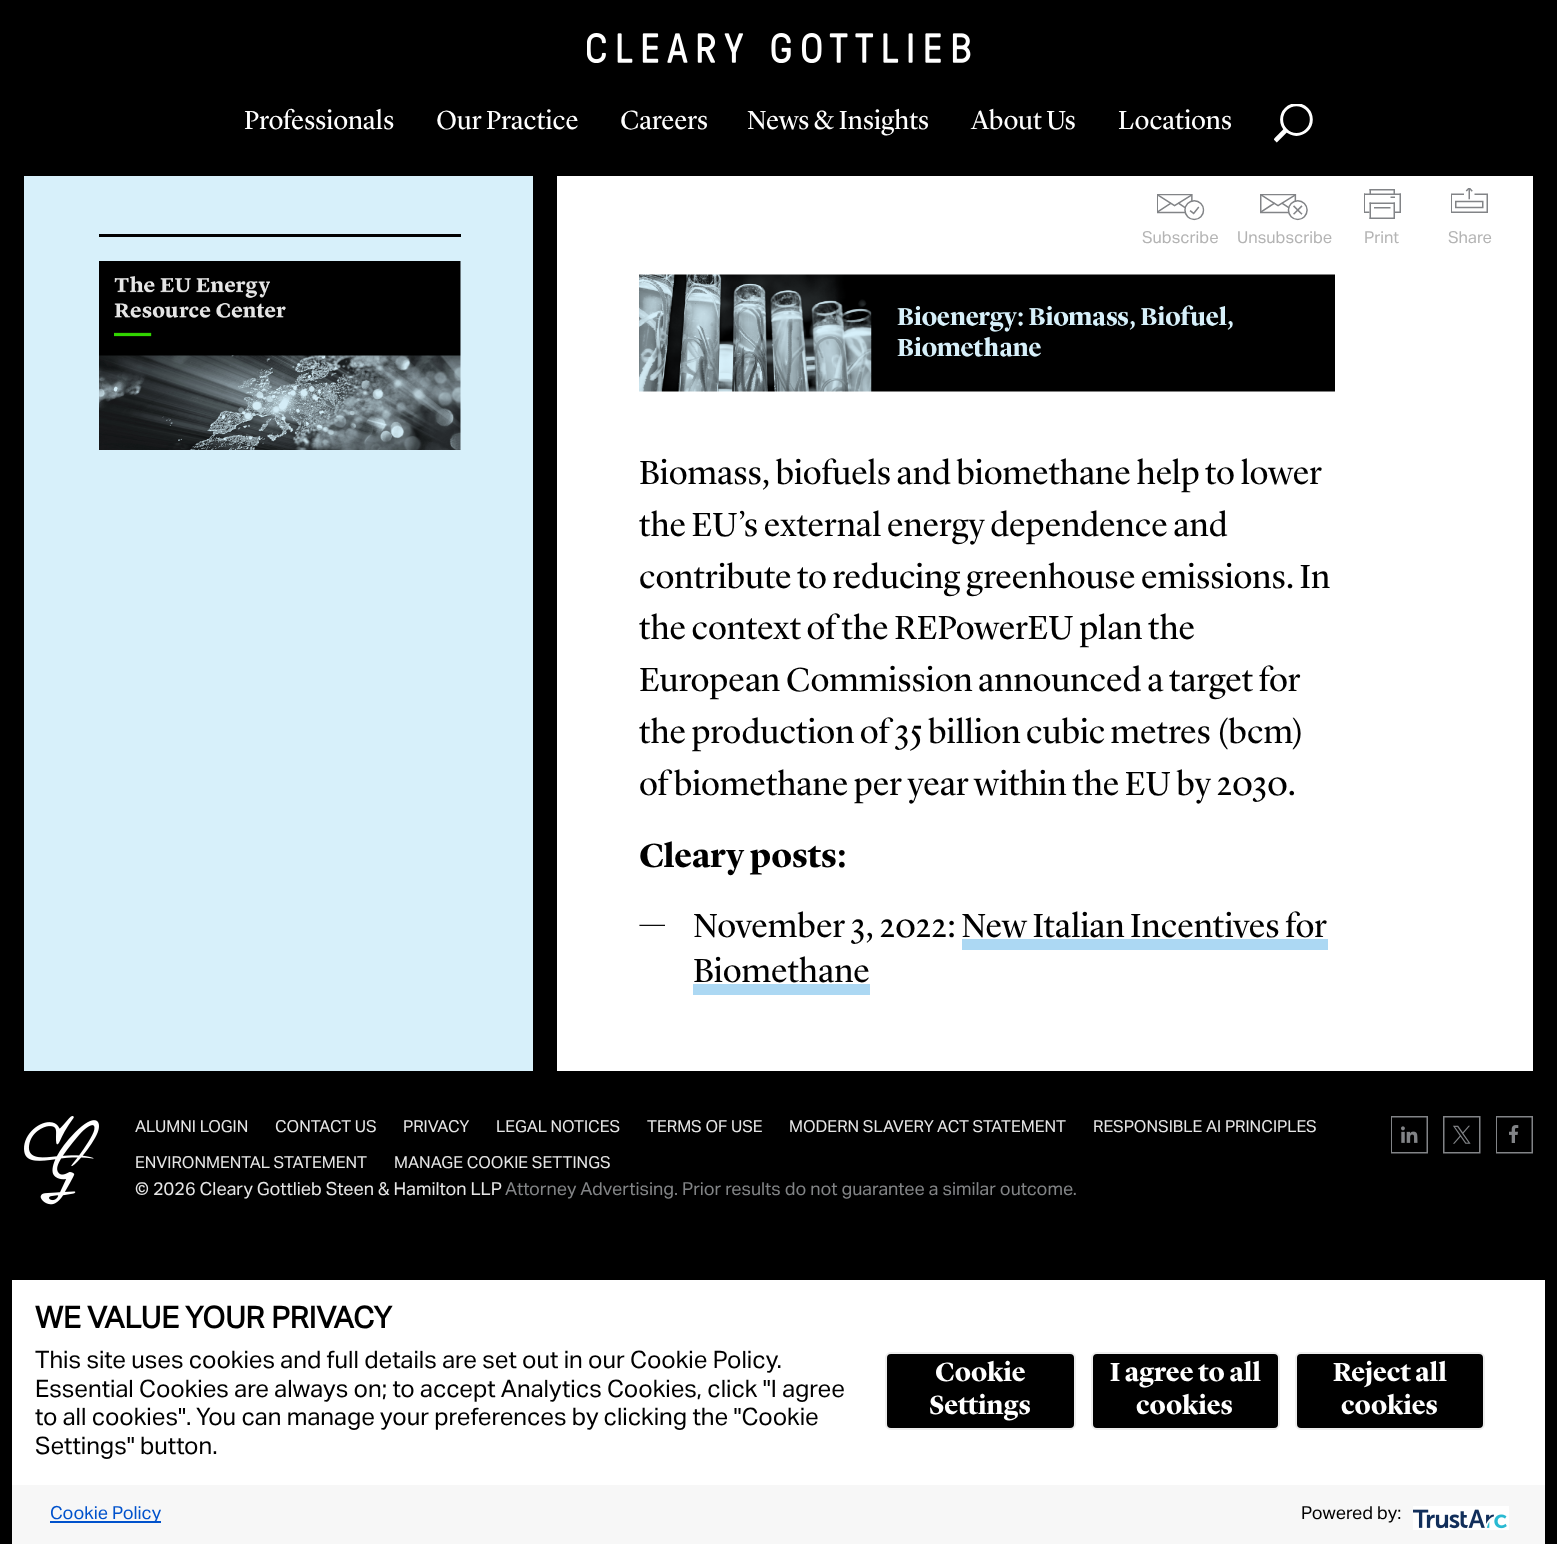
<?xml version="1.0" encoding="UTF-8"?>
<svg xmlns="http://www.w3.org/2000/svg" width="1557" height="1544">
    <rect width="100%" height="100%" fill="#000000"/>
    <image x="587" y="33" width="384" height="30" href="img_01.png"/>
    <text x="244" y="129" font-family="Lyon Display" font-size="27" fill="#FFFFFF">Professionals</text>
    <text x="436" y="129" font-family="Lyon Display" font-size="27" fill="#FFFFFF">Our Practice</text>
    <text x="620" y="129" font-family="Lyon Display" font-size="27" fill="#FFFFFF">Careers</text>
    <text x="747" y="129" font-family="Lyon Display" font-size="27" fill="#FFFFFF">News &amp; Insights</text>
    <text x="971" y="129" font-family="Lyon Display" font-size="27" fill="#FFFFFF">About Us</text>
    <text x="1118" y="129" font-family="Lyon Display" font-size="27" fill="#FFFFFF">Locations</text>
    <image x="1274" y="104" width="39" height="39" href="img_02.png"/>
    <rect x="24" y="176" width="509" height="895" fill="#D7F0FA"/>
    <rect x="557" y="176" width="976" height="895" fill="#FFFFFF"/>
    <rect x="99" y="234" width="362" height="3" fill="#000000"/>
    <image x="99" y="261" width="362" height="189" href="img_03.png"/>
    <image x="1157" y="194" width="48" height="27" href="img_04.png"/>
    <text x="1142" y="243" font-family="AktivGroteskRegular" font-size="16.5" fill="#B4B4B4">Subscribe</text>
    <image x="1260" y="194" width="48" height="27" href="img_05.png"/>
    <text x="1237" y="243" font-family="AktivGroteskRegular" font-size="16.5" fill="#B4B4B4">Unsubscribe</text>
    <image x="1364" y="189" width="37" height="30" href="img_06.png"/>
    <text x="1364" y="243" font-family="AktivGroteskRegular" font-size="16.5" fill="#B4B4B4">Print</text>
    <image x="1451" y="188" width="37" height="25" href="img_07.png"/>
    <text x="1448" y="243" font-family="AktivGroteskRegular" font-size="16.5" fill="#B4B4B4">Share</text>
    <image x="639" y="274" width="696" height="118" href="img_08.png"/>
    <text font-family="Lyon Display" font-size="34.5" fill="#000000">
        <tspan x="639" y="484">Biomass, biofuels and biomethane help to lower</tspan>
        <tspan x="639" y="536">the EU’s external energy dependence and</tspan>
        <tspan x="639" y="588">contribute to reducing greenhouse emissions. In</tspan>
        <tspan x="639" y="639">the context of the REPowerEU plan the</tspan>
        <tspan x="639" y="691">European Commission announced a target for</tspan>
        <tspan x="639" y="743">the production of 35 billion cubic metres (bcm)</tspan>
        <tspan x="639" y="795">of biomethane per year within the EU by 2030.</tspan>
    </text>
    <text x="639" y="867" font-family="Lyon Display" font-size="34.5" font-weight="700" fill="#000000">Cleary posts:</text>
    <text x="638" y="934" font-family="Lyon Display" font-size="32" fill="#000000">—</text>
    <text font-family="Lyon Display" font-size="34.5" fill="#000000">
        <tspan x="693" y="937">November 3, 2022: New Italian Incentives for</tspan>
        <tspan x="693" y="982">Biomethane</tspan>
    </text>
    <rect x="962" y="939" width="366" height="11" fill="#ACD8F3"/>
    <rect x="693" y="984" width="177" height="11" fill="#ACD8F3"/>
    <image x="24" y="1116" width="75" height="89" href="img_09.png"/>
    <text x="135" y="1132" font-family="AktivGroteskRegular" font-size="16.5" fill="#E6E6E6">ALUMNI LOGIN</text>
    <text x="275" y="1132" font-family="AktivGroteskRegular" font-size="16.5" fill="#E6E6E6">CONTACT US</text>
    <text x="403" y="1132" font-family="AktivGroteskRegular" font-size="16.5" fill="#E6E6E6">PRIVACY</text>
    <text x="496" y="1132" font-family="AktivGroteskRegular" font-size="16.5" fill="#E6E6E6">LEGAL NOTICES</text>
    <text x="647" y="1132" font-family="AktivGroteskRegular" font-size="16.5" fill="#E6E6E6">TERMS OF USE</text>
    <text x="789" y="1132" font-family="AktivGroteskRegular" font-size="16.5" fill="#E6E6E6">MODERN SLAVERY ACT STATEMENT</text>
    <text x="1093" y="1132" font-family="AktivGroteskRegular" font-size="16.5" fill="#E6E6E6">RESPONSIBLE AI PRINCIPLES</text>
    <text x="135" y="1168" font-family="AktivGroteskRegular" font-size="16.5" fill="#E6E6E6">ENVIRONMENTAL STATEMENT</text>
    <text x="394" y="1168" font-family="AktivGroteskRegular" font-size="16.5" fill="#E6E6E6">MANAGE COOKIE SETTINGS</text>
    <image x="1391" y="1116" width="37" height="38" href="img_10.png"/>
    <image x="1443" y="1116" width="38" height="38" href="img_11.png"/>
    <image x="1496" y="1116" width="37" height="38" href="img_12.png"/>
    <text x="135" y="1195" font-family="AktivGroteskRegular" font-size="18" fill="#E6E6E6">© 2026 Cleary Gottlieb Steen &amp; Hamilton LLP</text>
    <text x="505" y="1195" font-family="AktivGroteskRegular" font-size="18" fill="#828486">Attorney Advertising. Prior results do not guarantee a similar outcome.</text>
    <rect x="12" y="1280" width="1533" height="205" fill="#FFFFFF"/>
    <text x="35" y="1328" font-family="AktivGroteskRegular" font-size="30" font-weight="700" fill="#000000">WE VALUE YOUR PRIVACY</text>
    <text font-family="AktivGroteskRegular" font-size="24" fill="#000000">
        <tspan x="35" y="1368">This site uses cookies and full details are set out in our Cookie Policy.</tspan>
        <tspan x="35" y="1397">Essential Cookies are always on; to accept Analytics Cookies, click "I agree</tspan>
        <tspan x="35" y="1425">to all cookies". You can manage your preferences by clicking the "Cookie</tspan>
        <tspan x="35" y="1454">Settings" button.</tspan>
    </text>
    <rect x="886" y="1353" width="189" height="76" rx="5" fill="#000000" stroke="#EEEEEE" stroke-width="2"/>
    <text x="935" y="1381" font-family="Lyon Display" font-size="27" font-weight="700" fill="#FFFFFF">Cookie</text>
    <text x="929" y="1414" font-family="Lyon Display" font-size="27" font-weight="700" fill="#FFFFFF">Settings</text>
    <rect x="1092" y="1353" width="187" height="76" rx="5" fill="#000000" stroke="#EEEEEE" stroke-width="2"/>
    <text x="1110" y="1381" font-family="Lyon Display" font-size="27" font-weight="700" fill="#FFFFFF">I agree to all</text>
    <text x="1136" y="1414" font-family="Lyon Display" font-size="27" font-weight="700" fill="#FFFFFF">cookies</text>
    <rect x="1296" y="1353" width="188" height="76" rx="5" fill="#000000" stroke="#EEEEEE" stroke-width="2"/>
    <text x="1333" y="1381" font-family="Lyon Display" font-size="27" font-weight="700" fill="#FFFFFF">Reject all</text>
    <text x="1341" y="1414" font-family="Lyon Display" font-size="27" font-weight="700" fill="#FFFFFF">cookies</text>
    <rect x="12" y="1485" width="1533" height="59" fill="#F7F7F7"/>
    <rect x="50" y="1521" width="111" height="2" fill="#0052CC"/>
    <text x="50" y="1519" font-family="AktivGroteskRegular" font-size="18" fill="#0052CC">Cookie Policy</text>
    <text x="1301" y="1519" font-family="AktivGroteskRegular" font-size="18" fill="#000000">Powered by:</text>
    <image x="1413" y="1506" width="96" height="24" href="img_13.png"/>
</svg>
